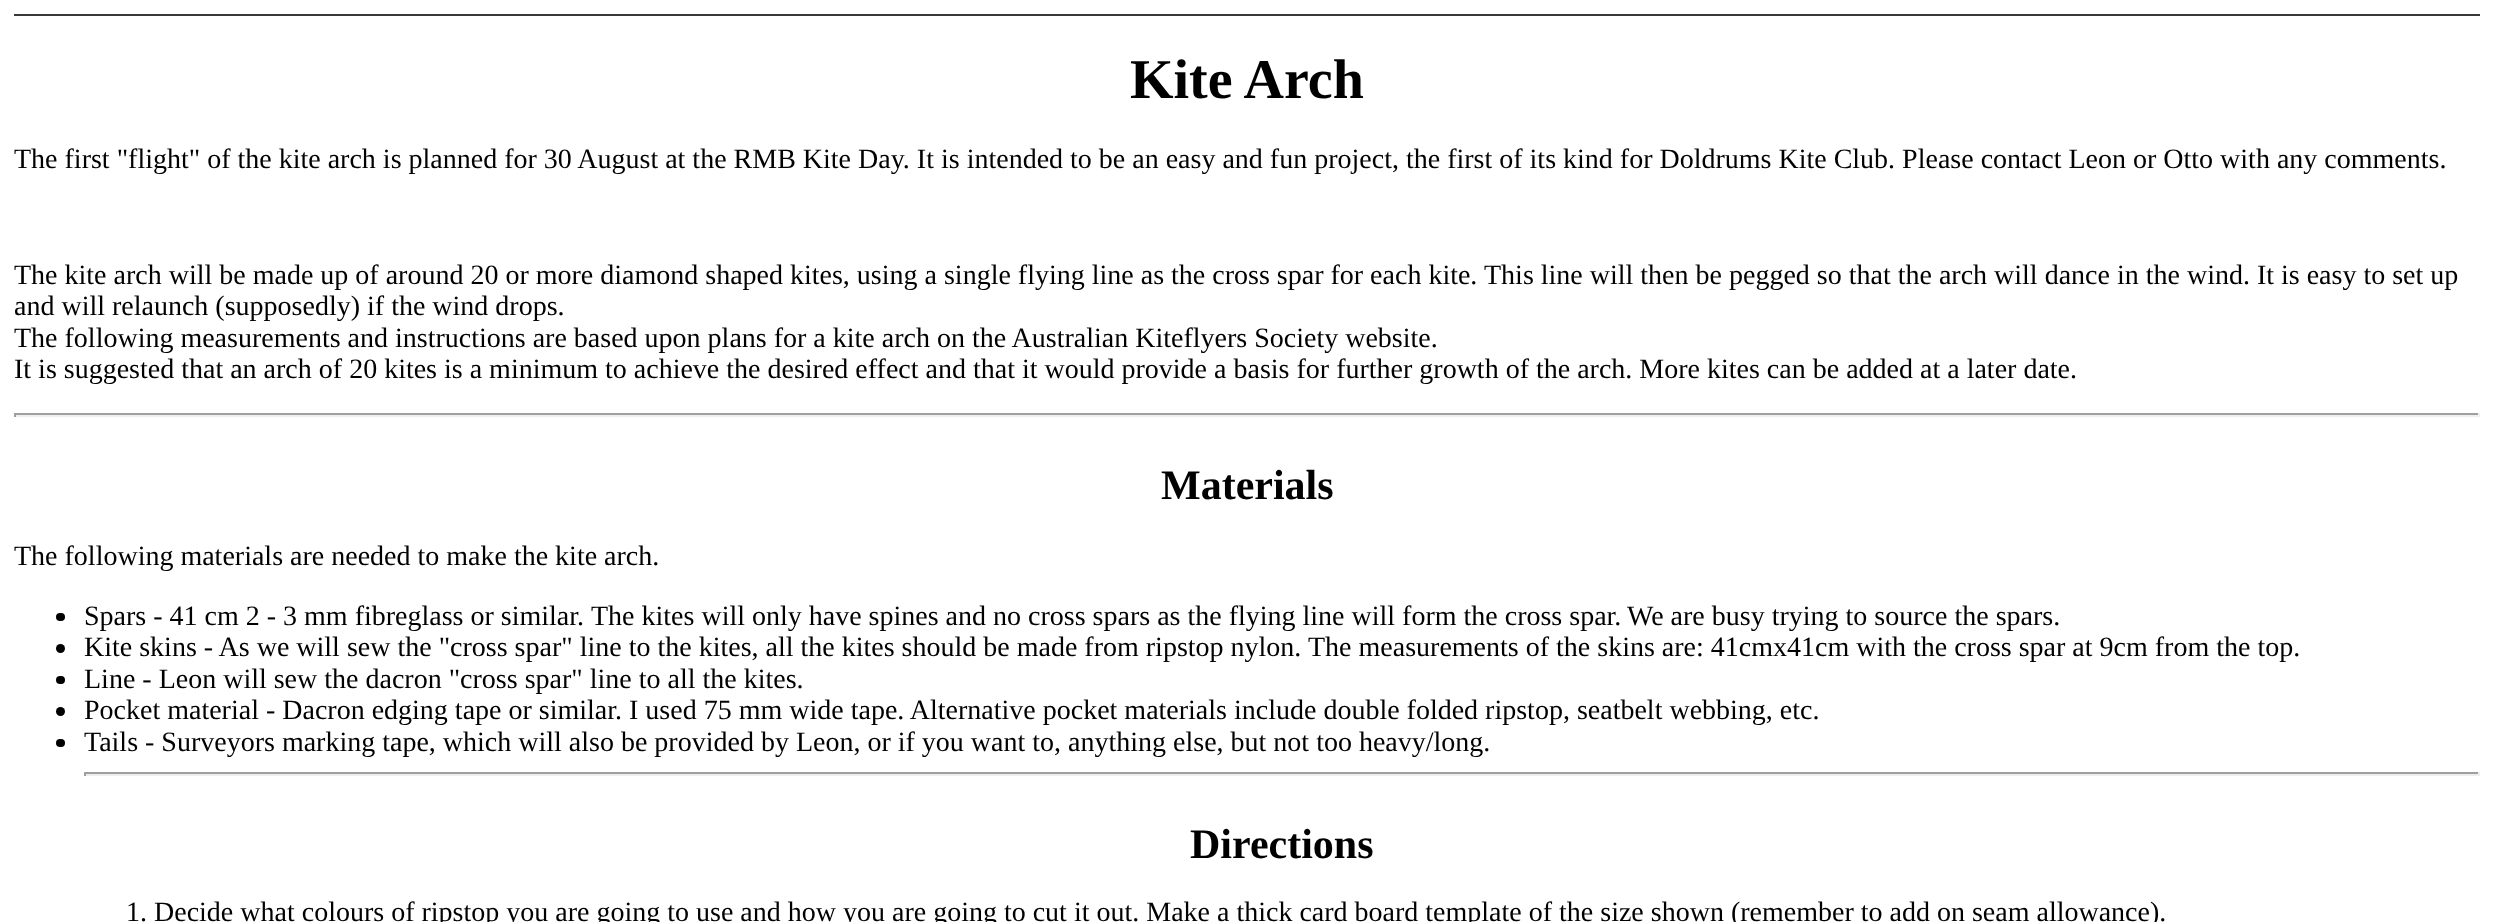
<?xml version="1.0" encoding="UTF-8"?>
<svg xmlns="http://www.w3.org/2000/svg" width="2493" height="922">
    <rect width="100%" height="100%" fill="#FFFFFF"/>
    <rect x="14" y="14" width="2466" height="2" fill="#393939"/>
    <text x="1130" y="98" font-family="Liberation Serif" font-size="56" font-weight="700" fill="#000000">Kite Arch</text>
    <text x="14" y="168" font-family="Liberation Serif" font-size="28" fill="#000000">The first "flight" of the kite arch is planned for 30 August at the RMB Kite Day. It is intended to be an easy and fun project, the first of its kind for Doldrums Kite Club. Please contact Leon or Otto with any comments.</text>
    <text x="14" y="284" font-family="Liberation Serif" font-size="28" fill="#000000">The kite arch will be made up of around 20 or more diamond shaped kites, using a single flying line as the cross spar for each kite.</text>
    <text x="1484" y="284" font-family="Liberation Serif" font-size="28" fill="#000000">This line will then be pegged so that the arch will dance in the wind. It is easy to set up</text>
    <text font-family="Liberation Serif" font-size="28" fill="#000000">
        <tspan x="14" y="315">and will relaunch (supposedly) if the wind drops.</tspan>
        <tspan x="14" y="347">The following measurements and instructions are based upon plans for a kite arch on the Australian Kiteflyers Society website.</tspan>
        <tspan x="14" y="378">It is suggested that an arch of 20 kites is a minimum to achieve the desired effect and that it would provide a basis for further growth of the arch. More kites can be added at a later date.</tspan>
    </text>
    <rect x="14" y="413" width="2466" height="2" fill="#9F9F9F"/>
    <rect x="2478" y="413" width="2" height="4" fill="#EEEEEE"/>
    <rect x="14" y="415" width="2466" height="2" fill="#EEEEEE"/>
    <rect x="14" y="413" width="2" height="4" fill="#9F9F9F"/>
    <text x="1161" y="499" font-family="Liberation Serif" font-size="42" font-weight="700" fill="#000000">Materials</text>
    <text x="14" y="565" font-family="Liberation Serif" font-size="28" fill="#000000">The following materials are needed to make the kite arch.</text>
    <rect x="56" y="613" width="9" height="8" rx="4" fill="#000000"/>
    <text x="84" y="625" font-family="Liberation Serif" font-size="28" fill="#000000">Spars - 41 cm 2 - 3 mm fibreglass or similar.</text>
    <text x="591" y="625" font-family="Liberation Serif" font-size="28" fill="#000000">The kites will only have spines and no cross spars as the flying line will form the cross spar.</text>
    <text x="1627" y="625" font-family="Liberation Serif" font-size="28" fill="#000000">We are busy trying to source the spars.</text>
    <circle cx="60.5" cy="648.5" r="4.5" fill="#000000"/>
    <text x="84" y="656" font-family="Liberation Serif" font-size="28" fill="#000000">Kite skins - As we will sew the "cross spar" line to the kites, all the kites should be made from ripstop nylon.</text>
    <text x="1308" y="656" font-family="Liberation Serif" font-size="28" fill="#000000">The measurements of the skins are: 41cmx41cm with the cross spar at 9cm from the top.</text>
    <rect x="56" y="676" width="9" height="8" rx="4" fill="#000000"/>
    <text x="84" y="688" font-family="Liberation Serif" font-size="28" fill="#000000">Line - Leon will sew the dacron "cross spar" line to all the kites.</text>
    <circle cx="60.5" cy="711.5" r="4.5" fill="#000000"/>
    <text x="84" y="719" font-family="Liberation Serif" font-size="28" fill="#000000">Pocket material - Dacron edging tape or similar. I used 75 mm wide tape. Alternative pocket materials include double folded ripstop, seatbelt webbing, etc.</text>
    <rect x="56" y="739" width="9" height="8" rx="4" fill="#000000"/>
    <text x="84" y="751" font-family="Liberation Serif" font-size="28" fill="#000000">Tails - Surveyors marking tape, which will also be provided by Leon, or if you want to, anything else, but not too heavy/long.</text>
    <rect x="84" y="772" width="2396" height="2" fill="#9F9F9F"/>
    <rect x="2478" y="772" width="2" height="4" fill="#EEEEEE"/>
    <rect x="84" y="774" width="2396" height="2" fill="#EEEEEE"/>
    <rect x="84" y="772" width="2" height="4" fill="#9F9F9F"/>
    <text x="1190" y="858" font-family="Liberation Serif" font-size="42" font-weight="700" fill="#000000">Directions</text>
    <text x="126" y="921" font-family="Liberation Serif" font-size="28" fill="#000000">1. Decide what colours of ripstop you are going to use and how you are going to cut it out. Make a thick card board template of the size shown (remember to add on seam allowance).</text>
</svg>
